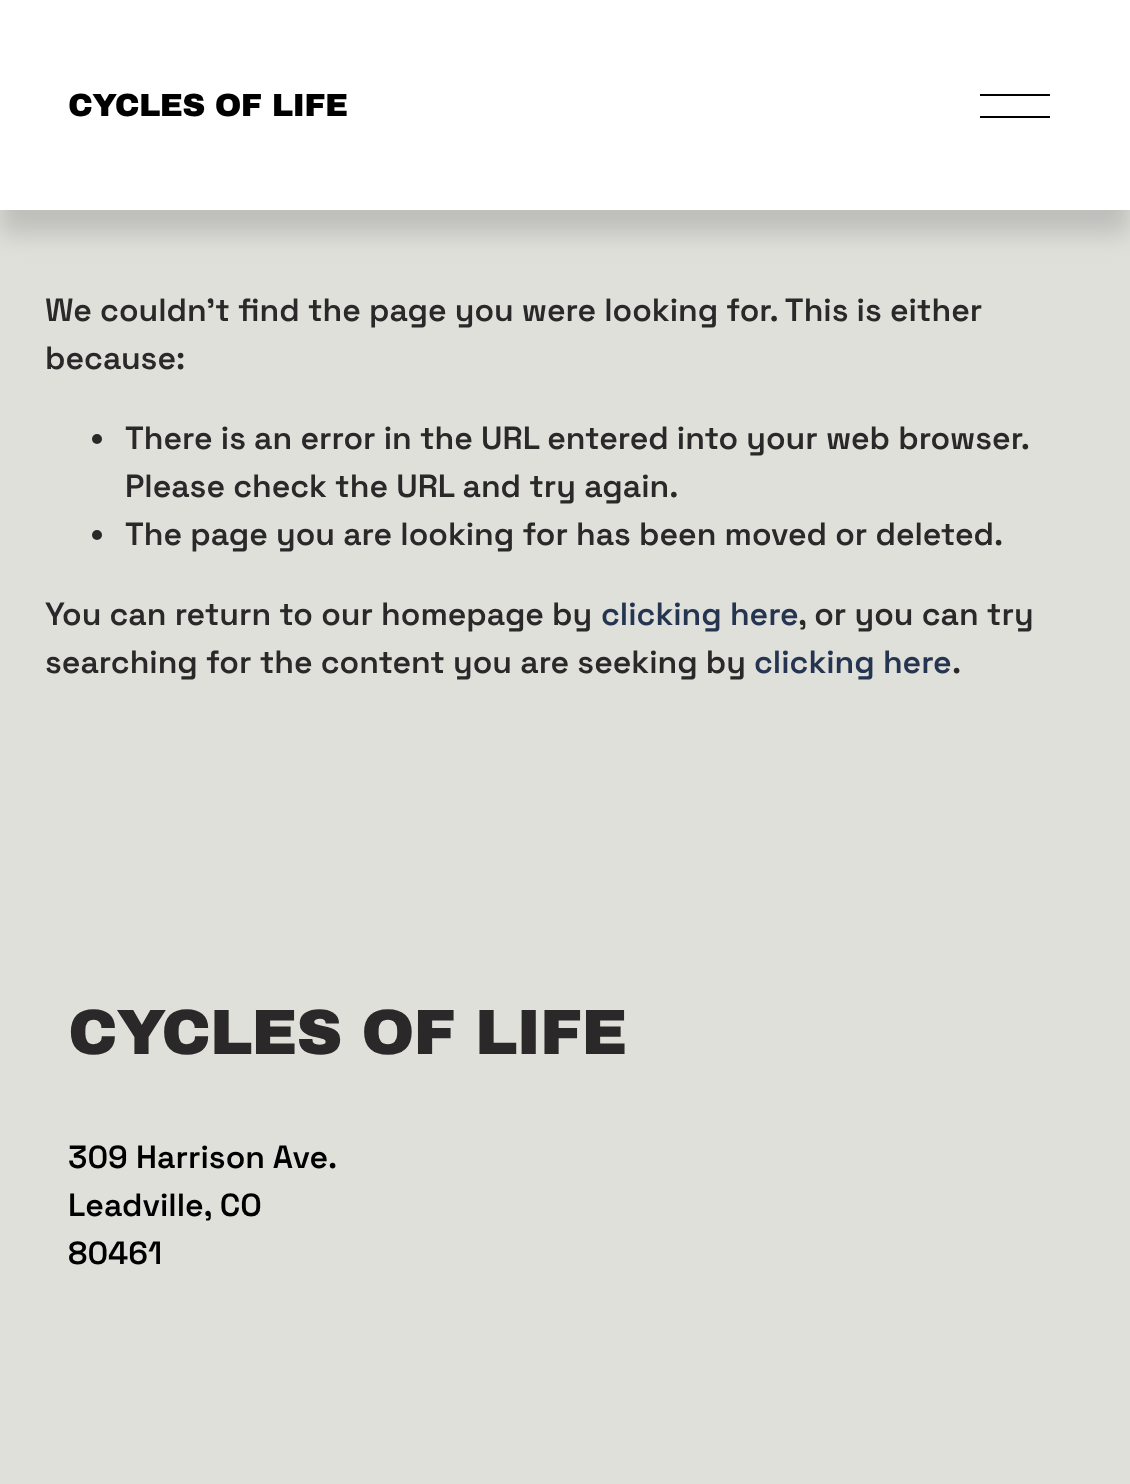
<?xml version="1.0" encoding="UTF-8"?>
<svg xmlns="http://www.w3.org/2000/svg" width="1130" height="1484">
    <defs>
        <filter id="blur1" x="-50%" y="-200%" width="200%" height="500%"><feGaussianBlur stdDeviation="12"/></filter>
    </defs>
    <rect width="100%" height="100%" fill="#E0E0DB"/>
    <rect x="0" y="24" width="1130" height="210" fill="#BEBEBA" filter="url(#blur1)"/>
    <rect x="0" y="0" width="1130" height="210" fill="#FFFFFF"/>
    <text x="68" y="116" font-family="Archivo Black" font-size="32" font-weight="900" letter-spacing="-0.6" fill="#000000">CYCLES OF LIFE</text>
    <rect x="980" y="94" width="70" height="2" fill="#000000"/>
    <rect x="980" y="116" width="70" height="2" fill="#000000"/>
    <text font-family="Space Grotesk" font-size="32" font-weight="600" fill="#2A2829">
        <tspan x="45" y="321">We couldn't find the page you were looking for. This is either</tspan>
        <tspan x="45" y="369">because:</tspan>
    </text>
    <circle cx="97" cy="439" r="5" fill="#2A2829"/>
    <text font-family="Space Grotesk" font-size="32" font-weight="600" fill="#2A2829">
        <tspan x="125" y="449">There is an error in the URL entered into your web browser.</tspan>
        <tspan x="125" y="497">Please check the URL and try again.</tspan>
    </text>
    <circle cx="97" cy="535" r="5" fill="#2A2829"/>
    <text x="125" y="545" font-family="Space Grotesk" font-size="32" font-weight="600" fill="#2A2829">The page you are looking for has been moved or deleted.</text>
    <text x="45" y="625" font-family="Space Grotesk" font-size="32" font-weight="600" fill="#2A2829">You can return to our homepage by</text>
    <text x="601" y="625" font-family="Space Grotesk" font-size="32" font-weight="600" fill="#253551">clicking here</text>
    <text x="798" y="625" font-family="Space Grotesk" font-size="32" font-weight="600" fill="#2A2829">, or you can try</text>
    <text x="45" y="673" font-family="Space Grotesk" font-size="32" font-weight="600" fill="#2A2829">searching for the content you are seeking by</text>
    <text x="754" y="673" font-family="Space Grotesk" font-size="32" font-weight="600" fill="#253551">clicking here</text>
    <text x="952" y="673" font-family="Space Grotesk" font-size="32" font-weight="600" fill="#2A2829">.</text>
    <text x="68" y="1054" font-family="Archivo Black" font-size="64" font-weight="900" letter-spacing="-1.25" fill="#2A2829">CYCLES OF LIFE</text>
    <text font-family="Space Grotesk" font-size="32" font-weight="600" fill="#000000">
        <tspan x="68" y="1168">309 Harrison Ave.</tspan>
        <tspan x="68" y="1216">Leadville, CO</tspan>
        <tspan x="68" y="1264">80461</tspan>
    </text>
</svg>
